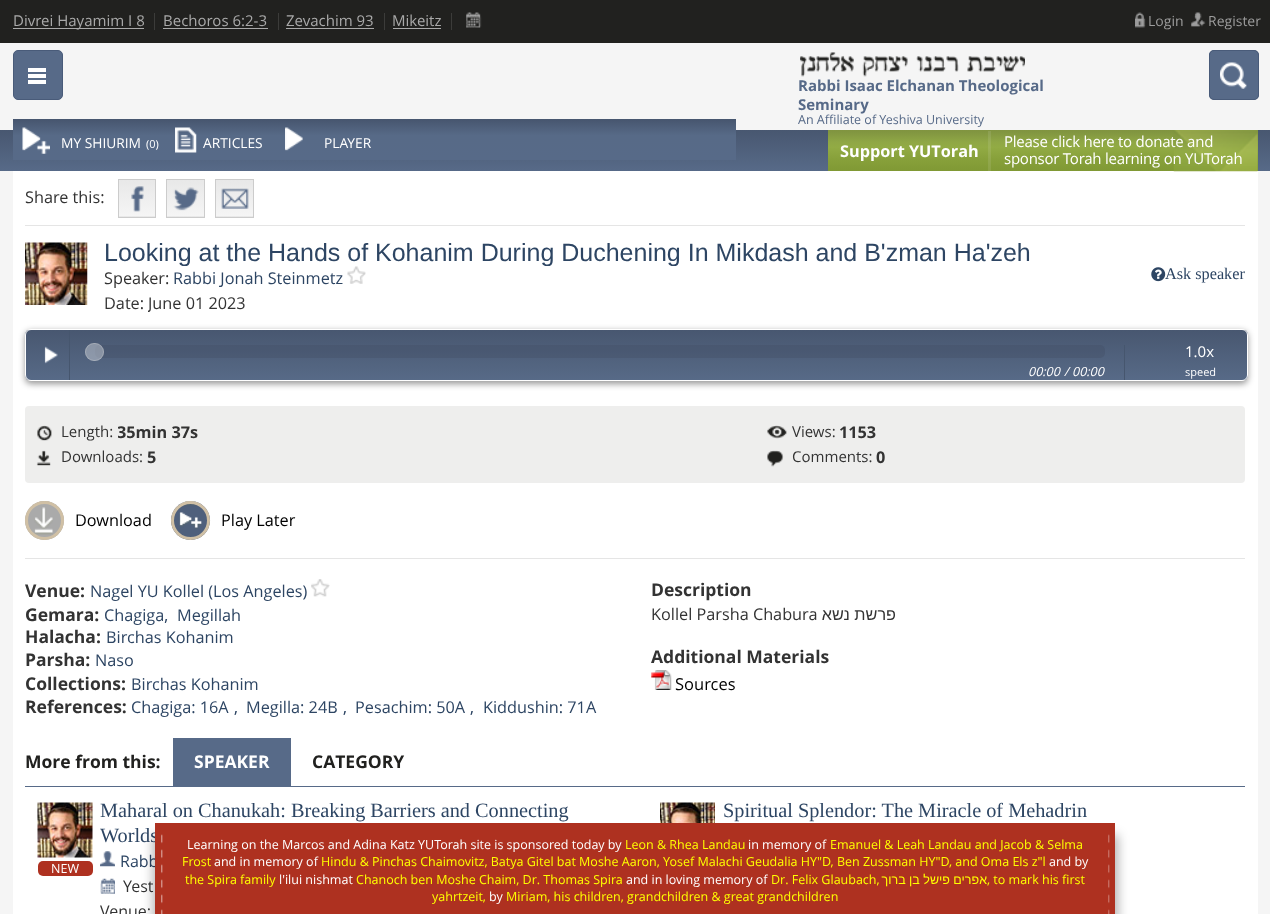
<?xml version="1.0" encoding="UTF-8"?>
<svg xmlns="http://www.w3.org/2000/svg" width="1270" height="914">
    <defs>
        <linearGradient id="g1" gradientUnits="userSpaceOnUse" x1="635" y1="130" x2="635" y2="171"><stop offset="0" stop-color="#485770"/><stop offset="1" stop-color="#576A88"/></linearGradient>
        <linearGradient id="g2" gradientUnits="userSpaceOnUse" x1="1043" y1="130" x2="1043" y2="171"><stop offset="0" stop-color="#819640"/><stop offset="0.02" stop-color="#809440"/><stop offset="0.09" stop-color="#839841"/><stop offset="0.29" stop-color="#8FA745"/><stop offset="0.42" stop-color="#92AB44"/><stop offset="0.69" stop-color="#88A13B"/><stop offset="1" stop-color="#809934"/></linearGradient>
        <linearGradient id="g3" gradientUnits="userSpaceOnUse" x1="1043" y1="130" x2="1043" y2="171"><stop offset="0" stop-color="#8DA052"/><stop offset="0.02" stop-color="#8C9E52"/><stop offset="0.09" stop-color="#8EA153"/><stop offset="0.29" stop-color="#99AF57"/><stop offset="0.42" stop-color="#9CB256"/><stop offset="0.69" stop-color="#93A94E"/><stop offset="1" stop-color="#8CA247"/></linearGradient>
        <linearGradient id="g4" gradientUnits="userSpaceOnUse" x1="137" y1="180" x2="137" y2="216"><stop offset="0" stop-color="#E8E8E8"/><stop offset="1" stop-color="#F5F5F5"/></linearGradient>
        <linearGradient id="g5" gradientUnits="userSpaceOnUse" x1="137" y1="216" x2="137" y2="253"><stop offset="0" stop-color="#E8E8E8"/><stop offset="1" stop-color="#F5F5F5"/></linearGradient>
        <linearGradient id="g6" gradientUnits="userSpaceOnUse" x1="186" y1="180" x2="186" y2="216"><stop offset="0" stop-color="#E8E8E8"/><stop offset="1" stop-color="#F5F5F5"/></linearGradient>
        <linearGradient id="g7" gradientUnits="userSpaceOnUse" x1="186" y1="216" x2="186" y2="253"><stop offset="0" stop-color="#E8E8E8"/><stop offset="1" stop-color="#F5F5F5"/></linearGradient>
        <linearGradient id="g8" gradientUnits="userSpaceOnUse" x1="234" y1="180" x2="234" y2="216"><stop offset="0" stop-color="#E8E8E8"/><stop offset="1" stop-color="#F5F5F5"/></linearGradient>
        <linearGradient id="g9" gradientUnits="userSpaceOnUse" x1="234" y1="216" x2="234" y2="253"><stop offset="0" stop-color="#E8E8E8"/><stop offset="1" stop-color="#F5F5F5"/></linearGradient>
        <clipPath id="clip1"><rect x="104" y="239" width="1141" height="27"/></clipPath>
        <clipPath id="clip2"><rect x="148" y="291" width="1097" height="25"/></clipPath>
        <filter id="blur1" x="-50%" y="-200%" width="200%" height="500%"><feGaussianBlur stdDeviation="3"/></filter>
        <clipPath id="clip3"><rect x="25" y="329" width="1223" height="52" rx="6"/></clipPath>
        <linearGradient id="g10" gradientUnits="userSpaceOnUse" x1="636" y1="330" x2="636" y2="380"><stop offset="0" stop-color="#485770"/><stop offset="1" stop-color="#576A87"/></linearGradient>
        <clipPath id="clip4"><rect x="118" y="420" width="637" height="25"/></clipPath>
        <linearGradient id="g11" gradientUnits="userSpaceOnUse" x1="374" y1="119" x2="374" y2="160"><stop offset="0" stop-color="#485770"/><stop offset="0.02" stop-color="#47566F"/><stop offset="0.4" stop-color="#576A87"/><stop offset="1" stop-color="#576A88"/></linearGradient>
        <filter id="blur2" x="-50%" y="-200%" width="200%" height="500%"><feGaussianBlur stdDeviation="5.5"/></filter>
    </defs>
    <rect width="100%" height="100%" fill="#F5F5F5"/>
    <rect x="0" y="0" width="1270" height="43" fill="#21211F"/>
    <rect x="13" y="28" width="131" height="1" fill="#A9A9A9"/>
    <text x="13" y="26" font-family="Open Sans" font-size="15" fill="#A9A9A9">Divrei Hayamim I 8</text>
    <rect x="154" y="13" width="1" height="17" fill="#3C3C3A"/>
    <text x="163" y="26" font-family="Open Sans" font-size="15" fill="#A9A9A9">Bechoros 6:2-3</text>
    <rect x="163" y="28" width="105" height="1" fill="#A9A9A9"/>
    <rect x="278" y="13" width="1" height="17" fill="#3C3C3A"/>
    <text x="286" y="26" font-family="Open Sans" font-size="15" fill="#A9A9A9">Zevachim 93</text>
    <rect x="286" y="28" width="88" height="1" fill="#A9A9A9"/>
    <rect x="451" y="13" width="1" height="17" fill="#3C3C3A"/>
    <rect x="384" y="13" width="1" height="17" fill="#3C3C3A"/>
    <text x="392" y="26" font-family="Open Sans" font-size="15" fill="#A9A9A9">Mikeitz</text>
    <rect x="393" y="28" width="48" height="1" fill="#A9A9A9"/>
    <image x="466" y="12" width="16" height="16" href="img_01.png"/>
    <image x="1135" y="12" width="11" height="16" href="img_02.png"/>
    <text x="1148" y="26" font-family="Open Sans" font-size="14" fill="#9D9D9D">Login</text>
    <image x="1191" y="12" width="15" height="15" href="img_03.png"/>
    <text x="1208" y="26" font-family="Open Sans" font-size="14" fill="#9D9D9D">Register</text>
    <image x="800" y="52" width="225" height="25" href="img_04.png"/>
    <text font-family="Open Sans" font-size="15" font-weight="700" fill="#576A88">
        <tspan x="798" y="91">Rabbi Isaac Elchanan Theological</tspan>
        <tspan x="798" y="110">Seminary</tspan>
    </text>
    <text x="798" y="124" font-family="Open Sans" font-size="12.5" fill="#576A88">An Affiliate of Yeshiva University</text>
    <rect x="1209" y="50" width="50" height="50" rx="5" fill="#576A88"/>
    <image x="1220" y="62" width="27" height="27" href="img_05.png"/>
    <rect x="1209.5" y="50.5" width="49" height="49" rx="4.5" fill="none" stroke="#495B79"/>
    <rect x="0" y="130" width="1270" height="41" fill="url(#g1)"/>
    <rect x="13.5" y="50.5" width="49" height="49" rx="4.5" fill="#576A88" stroke="#495B79"/>
    <rect x="28" y="68" width="18" height="4" fill="#FFFFFF"/>
    <rect x="28" y="80" width="18" height="4" fill="#FFFFFF"/>
    <rect x="28" y="74" width="18" height="4" fill="#FFFFFF"/>
    <rect x="828" y="130" width="430" height="41" fill="url(#g2)"/>
    <rect x="988" y="131" width="3" height="40" fill="url(#g3)"/>
    <rect x="13" y="171" width="1245" height="743" fill="#FFFFFF"/>
    <image x="1173" y="130" width="85" height="42" href="img_06.png"/>
    <text x="840" y="157" font-family="Open Sans" font-size="16.25" font-weight="700" fill="#FFFFFF">Support YUTorah</text>
    <text font-family="Open Sans" font-size="15" letter-spacing="-0.25" fill="#FFFFFF">
        <tspan x="1004" y="147">Please click here to donate and</tspan>
        <tspan x="1004" y="164">sponsor Torah learning on YUTorah</tspan>
    </text>
    <rect x="25" y="225" width="1220" height="1" fill="#E5E5E5"/>
    <text x="25" y="203" font-family="Open Sans" font-size="16.25" fill="#333333">Share this:</text>
    <rect x="119" y="180" width="36" height="36" fill="url(#g4)"/>
    <rect x="118" y="216" width="38" height="1" fill="url(#g5)"/>
    <rect x="118.5" y="179.5" width="37" height="38" fill="none" stroke="#CCCCCC"/>
    <image x="131" y="186" width="13" height="26" href="img_07.png"/>
    <rect x="167" y="180" width="37" height="36" fill="url(#g6)"/>
    <rect x="166" y="216" width="39" height="1" fill="url(#g7)"/>
    <rect x="166.5" y="179.5" width="38" height="38" fill="none" stroke="#CCCCCC"/>
    <image x="173" y="187" width="26" height="24" href="img_08.png"/>
    <rect x="216" y="180" width="37" height="36" fill="url(#g8)"/>
    <rect x="215" y="216" width="39" height="1" fill="url(#g9)"/>
    <rect x="215.5" y="179.5" width="38" height="38" fill="none" stroke="#CCCCCC"/>
    <image x="221" y="188" width="28" height="21" href="img_09.png"/>
    <image x="25" y="242" width="63" height="63" href="img_10.png"/>
    <g clip-path="url(#clip1)">
        <text x="104" y="261" font-family="Liberation Sans" font-size="25" fill="#2D4563">Looking at the Hands of Kohanim During Duchening In Mikdash and B'zman Ha'zeh</text>
    </g>
    <text x="104" y="284" font-family="Open Sans" font-size="16.25" fill="#333333">Speaker:</text>
    <text x="173" y="284" font-family="Open Sans" font-size="16.25" fill="#2D4563">Rabbi Jonah Steinmetz</text>
    <image x="347" y="266" width="19" height="18" href="img_11.png"/>
    <image x="1151" y="267" width="15" height="15" href="img_12.png"/>
    <text x="1165" y="279" font-family="Liberation Serif" font-size="16.25" fill="#2D4563">Ask speaker</text>
    <text x="104" y="309" font-family="Open Sans" font-size="16.25" fill="#333333">Date:</text>
    <g clip-path="url(#clip2)">
        <text x="148" y="309" font-family="Open Sans" font-size="16.25" fill="#333333">June 01 2023</text>
    </g>
    <rect x="25" y="331" width="1223" height="53" rx="6" fill="#000000" fill-opacity="0.4" filter="url(#blur1)"/>
    <g clip-path="url(#clip3)">
        <rect x="25" y="330" width="1223" height="50" fill="url(#g10)"/>
    </g>
    <rect x="25.5" y="329.5" width="1222" height="51" rx="5.5" fill="none" stroke="#FFFFFF"/>
    <image x="44" y="346" width="14" height="18" href="img_13.png"/>
    <rect x="69" y="330" width="1" height="50" fill="#46566E"/>
    <rect x="1124" y="345" width="1" height="35" fill="#46566E"/>
    <rect x="95" y="345" width="1010" height="13" rx="5" fill="#414E65" fill-opacity="0.35"/>
    <rect x="85" y="343" width="19" height="18" rx="9" fill="#FFFFFF" fill-opacity="0.35"/>
    <rect x="85.5" y="343.5" width="18" height="17" rx="8.5" fill="none" stroke="#D3D3D3" stroke-opacity="0.35"/>
    <text x="1028" y="376" font-family="Open Sans" font-size="12.5" font-style="italic" fill="#FFFFFF">00:00</text>
    <text x="1064" y="376" font-family="Open Sans" font-size="12.5" font-style="italic" fill="#FFFFFF">/</text>
    <text x="1072" y="376" font-family="Open Sans" font-size="12.5" font-style="italic" fill="#FFFFFF">00:00</text>
    <text x="1185" y="357" font-family="Open Sans" font-size="15" fill="#FFFFFF">1.0x</text>
    <text x="1185" y="376" font-family="Open Sans" font-size="11" fill="#FFFFFF">speed</text>
    <rect x="25" y="406" width="1220" height="77" rx="4" fill="#EEEEED"/>
    <image x="37" y="425" width="15" height="16" href="img_14.png"/>
    <text x="61" y="437" font-family="Open Sans" font-size="15" fill="#333333">Length:</text>
    <g clip-path="url(#clip4)">
        <text x="117" y="438" font-family="Open Sans" font-size="16.25" font-weight="700" fill="#333333">35min 37s</text>
    </g>
    <image x="36" y="450" width="15" height="16" href="img_15.png"/>
    <text x="61" y="462" font-family="Open Sans" font-size="15" fill="#333333">Downloads:</text>
    <text x="147" y="463" font-family="Open Sans" font-size="16.25" font-weight="700" fill="#333333">5</text>
    <image x="767" y="425" width="20" height="14" href="img_16.png"/>
    <text x="792" y="437" font-family="Open Sans" font-size="15" fill="#333333">Views:</text>
    <text x="839" y="438" font-family="Open Sans" font-size="16.25" font-weight="700" fill="#333333">1153</text>
    <image x="767" y="450" width="17" height="17" href="img_17.png"/>
    <text x="792" y="462" font-family="Open Sans" font-size="15" fill="#333333">Comments:</text>
    <text x="876" y="463" font-family="Open Sans" font-size="16.25" font-weight="700" fill="#333333">0</text>
    <circle cx="44.5" cy="520.5" r="19.5" fill="#AAAAAA"/>
    <image x="34" y="507" width="19" height="28" href="img_18.png"/>
    <circle cx="44.5" cy="520.5" r="18" fill="none" stroke="#D0C0A5" stroke-width="3"/>
    <text x="75" y="526" font-family="Open Sans" font-size="16.25" fill="#000000">Download</text>
    <circle cx="190.5" cy="520.5" r="19.5" fill="#4F607C"/>
    <image x="179" y="501" width="23" height="28" href="img_19.png"/>
    <circle cx="190.5" cy="520.5" r="18" fill="none" stroke="#D0C0A5" stroke-width="3"/>
    <text x="221" y="526" font-family="Open Sans" font-size="16.25" fill="#000000">Play Later</text>
    <rect x="25" y="558" width="1220" height="1" fill="#E5E5E5"/>
    <text x="25" y="597" font-family="Open Sans" font-size="17.5" font-weight="700" fill="#333333">Venue:</text>
    <text x="90" y="597" font-family="Open Sans" font-size="16.25" fill="#2D4563">Nagel YU Kollel (Los Angeles)</text>
    <image x="311" y="579" width="19" height="18" href="img_20.png"/>
    <text x="25" y="621" font-family="Open Sans" font-size="17.5" font-weight="700" fill="#333333">Gemara:</text>
    <text x="104" y="621" font-family="Open Sans" font-size="16.25" fill="#2D4563">Chagiga,</text>
    <text x="177" y="621" font-family="Open Sans" font-size="16.25" fill="#2D4563">Megillah</text>
    <text x="25" y="643" font-family="Open Sans" font-size="17.5" font-weight="700" fill="#333333">Halacha:</text>
    <text x="106" y="643" font-family="Open Sans" font-size="16.25" fill="#2D4563">Birchas Kohanim</text>
    <text x="25" y="666" font-family="Open Sans" font-size="17.5" font-weight="700" fill="#333333">Parsha:</text>
    <text x="95" y="666" font-family="Open Sans" font-size="16.25" fill="#2D4563">Naso</text>
    <text x="25" y="690" font-family="Open Sans" font-size="17.5" font-weight="700" fill="#333333">Collections:</text>
    <text x="131" y="690" font-family="Open Sans" font-size="16.25" fill="#2D4563">Birchas Kohanim</text>
    <text x="25" y="713" font-family="Open Sans" font-size="17.5" font-weight="700" fill="#333333">References:</text>
    <text x="131" y="713" font-family="Open Sans" font-size="16.25" fill="#2D4563">Chagiga: 16A</text>
    <text x="234" y="713" font-family="Open Sans" font-size="16.25" fill="#2D4563">,</text>
    <text x="246" y="713" font-family="Open Sans" font-size="16.25" fill="#2D4563">Megilla: 24B</text>
    <text x="343" y="713" font-family="Open Sans" font-size="16.25" fill="#2D4563">,</text>
    <text x="355" y="713" font-family="Open Sans" font-size="16.25" fill="#2D4563">Pesachim: 50A</text>
    <text x="470" y="713" font-family="Open Sans" font-size="16.25" fill="#2D4563">,</text>
    <text x="483" y="713" font-family="Open Sans" font-size="16.25" fill="#2D4563">Kiddushin: 71A</text>
    <text x="651" y="596" font-family="Open Sans" font-size="17.5" font-weight="700" fill="#333333">Description</text>
    <text x="651" y="620" font-family="Open Sans" font-size="16.25" fill="#333333">Kollel Parsha Chabura</text>
    <text x="896" y="620" font-family="Liberation Sans" font-size="16.25" direction="rtl" fill="#333333">פרשת נשא</text>
    <text x="651" y="663" font-family="Open Sans" font-size="17.5" font-weight="700" fill="#333333">Additional Materials</text>
    <image x="651" y="670" width="21" height="20" href="img_21.png"/>
    <text x="675" y="690" font-family="Open Sans" font-size="16.5" fill="#000000">Sources</text>
    <rect x="25" y="786" width="1220" height="1" fill="#576A88"/>
    <text x="25" y="768" font-family="Open Sans" font-size="17.5" font-weight="700" fill="#21211F">More from this:</text>
    <rect x="173" y="738" width="118" height="48" fill="#576A88"/>
    <text x="194" y="768" font-family="Open Sans" font-size="17.5" font-weight="700" fill="#FFFFFF">SPEAKER</text>
    <text x="312" y="768" font-family="Open Sans" font-size="17.5" font-weight="700" fill="#21211F">CATEGORY</text>
    <image x="37" y="802" width="56" height="56" href="img_22.png"/>
    <rect x="38" y="861" width="55" height="15" rx="5" fill="#AE3120"/>
    <text x="51" y="873" font-family="Open Sans" font-size="12.5" fill="#FFFFFF">NEW</text>
    <text font-family="Liberation Serif" font-size="20.3" fill="#2D4563">
        <tspan x="100" y="817">Maharal on Chanukah: Breaking Barriers and Connecting</tspan>
        <tspan x="100" y="842">Worlds</tspan>
    </text>
    <image x="100" y="851" width="15" height="16" href="img_23.png"/>
    <text x="120" y="867" font-family="Open Sans" font-size="16" fill="#2D4563">Rabb</text>
    <image x="100" y="878" width="15" height="16" href="img_24.png"/>
    <text x="123" y="892" font-family="Open Sans" font-size="16" fill="#333333">Yest</text>
    <text x="100" y="917" font-family="Open Sans" font-size="16" fill="#333333">Venue:</text>
    <image x="660" y="802" width="55" height="21" href="img_25.png"/>
    <text x="723" y="817" font-family="Liberation Serif" font-size="20.3" fill="#2D4563">Spiritual Splendor: The Miracle of Mehadrin</text>
    <rect x="13" y="119" width="723" height="41" fill="url(#g11)"/>
    <image x="22" y="127" width="28" height="27" href="img_26.png"/>
    <text x="61" y="148" font-family="Open Sans" font-size="13.75" fill="#FFFFFF">MY SHIURIM</text>
    <text x="146" y="148" font-family="Open Sans" font-size="11" fill="#FFFFFF">(0)</text>
    <image x="175" y="127" width="22" height="26" href="img_27.png"/>
    <text x="203" y="148" font-family="Open Sans" font-size="13.75" fill="#FFFFFF">ARTICLES</text>
    <image x="285" y="127" width="18" height="24" href="img_28.png"/>
    <text x="324" y="148" font-family="Open Sans" font-size="13.75" fill="#FFFFFF">PLAYER</text>
    <rect x="153" y="835" width="965" height="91" fill="#000000" fill-opacity="0.3" filter="url(#blur2)"/>
    <rect x="155" y="823" width="960" height="91" fill="#AE3120"/>
    <image x="161" y="834" width="2" height="80" href="img_29.png"/>
    <text x="187" y="849" font-family="Open Sans" font-size="12.5" fill="#FFFFFF">Learning on the Marcos and Adina Katz YUTorah site is sponsored today by</text>
    <text x="625" y="849" font-family="Open Sans" font-size="12.5" fill="#FFFF00">Leon &amp; Rhea Landau</text>
    <text x="748" y="849" font-family="Open Sans" font-size="12.5" fill="#FFFFFF">in memory of</text>
    <text x="830" y="849" font-family="Open Sans" font-size="12.5" fill="#FFFF00">Emanuel &amp; Leah Landau and Jacob &amp; Selma</text>
    <text x="182" y="866" font-family="Open Sans" font-size="12.5" fill="#FFFF00">Frost</text>
    <text x="214" y="866" font-family="Open Sans" font-size="12.5" fill="#FFFFFF">and in memory of</text>
    <text x="321" y="866" font-family="Open Sans" font-size="12.5" fill="#FFFF00">Hindu &amp; Pinchas Chaimovitz, Batya Gitel bat Moshe Aaron, Yosef Malachi Geudalia HY"D, Ben Zussman HY"D, and Oma Els z"l</text>
    <text x="1049" y="866" font-family="Open Sans" font-size="12.5" fill="#FFFFFF">and by</text>
    <text x="185" y="884" font-family="Open Sans" font-size="12.5" fill="#FFFF00">the Spira family</text>
    <text x="279" y="884" font-family="Open Sans" font-size="12.5" fill="#FFFFFF">l'ilui nishmat</text>
    <text x="356" y="884" font-family="Open Sans" font-size="12.5" fill="#FFFF00">Chanoch ben Moshe Chaim, Dr. Thomas Spira</text>
    <text x="626" y="884" font-family="Open Sans" font-size="12.5" fill="#FFFFFF">and in loving memory of</text>
    <text x="771" y="884" font-family="Open Sans" font-size="12.5" fill="#FFFF00">Dr. Felix Glaubach,</text>
    <text x="987" y="884" font-family="Liberation Sans" font-size="12.5" direction="rtl" fill="#FFFF00">אפרים פישל בן ברוך</text>
    <text x="987" y="884" font-family="Open Sans" font-size="12.5" fill="#FFFF00">, to mark his first</text>
    <text x="432" y="901" font-family="Open Sans" font-size="12.5" fill="#FFFF00">yahrtzeit,</text>
    <text x="489" y="901" font-family="Open Sans" font-size="12.5" fill="#FFFFFF">by</text>
    <text x="506" y="901" font-family="Open Sans" font-size="12.5" fill="#FFFF00">Miriam, his children, grandchildren &amp; great grandchildren</text>
    <image x="1108" y="834" width="2" height="80" href="img_30.png"/>
</svg>
